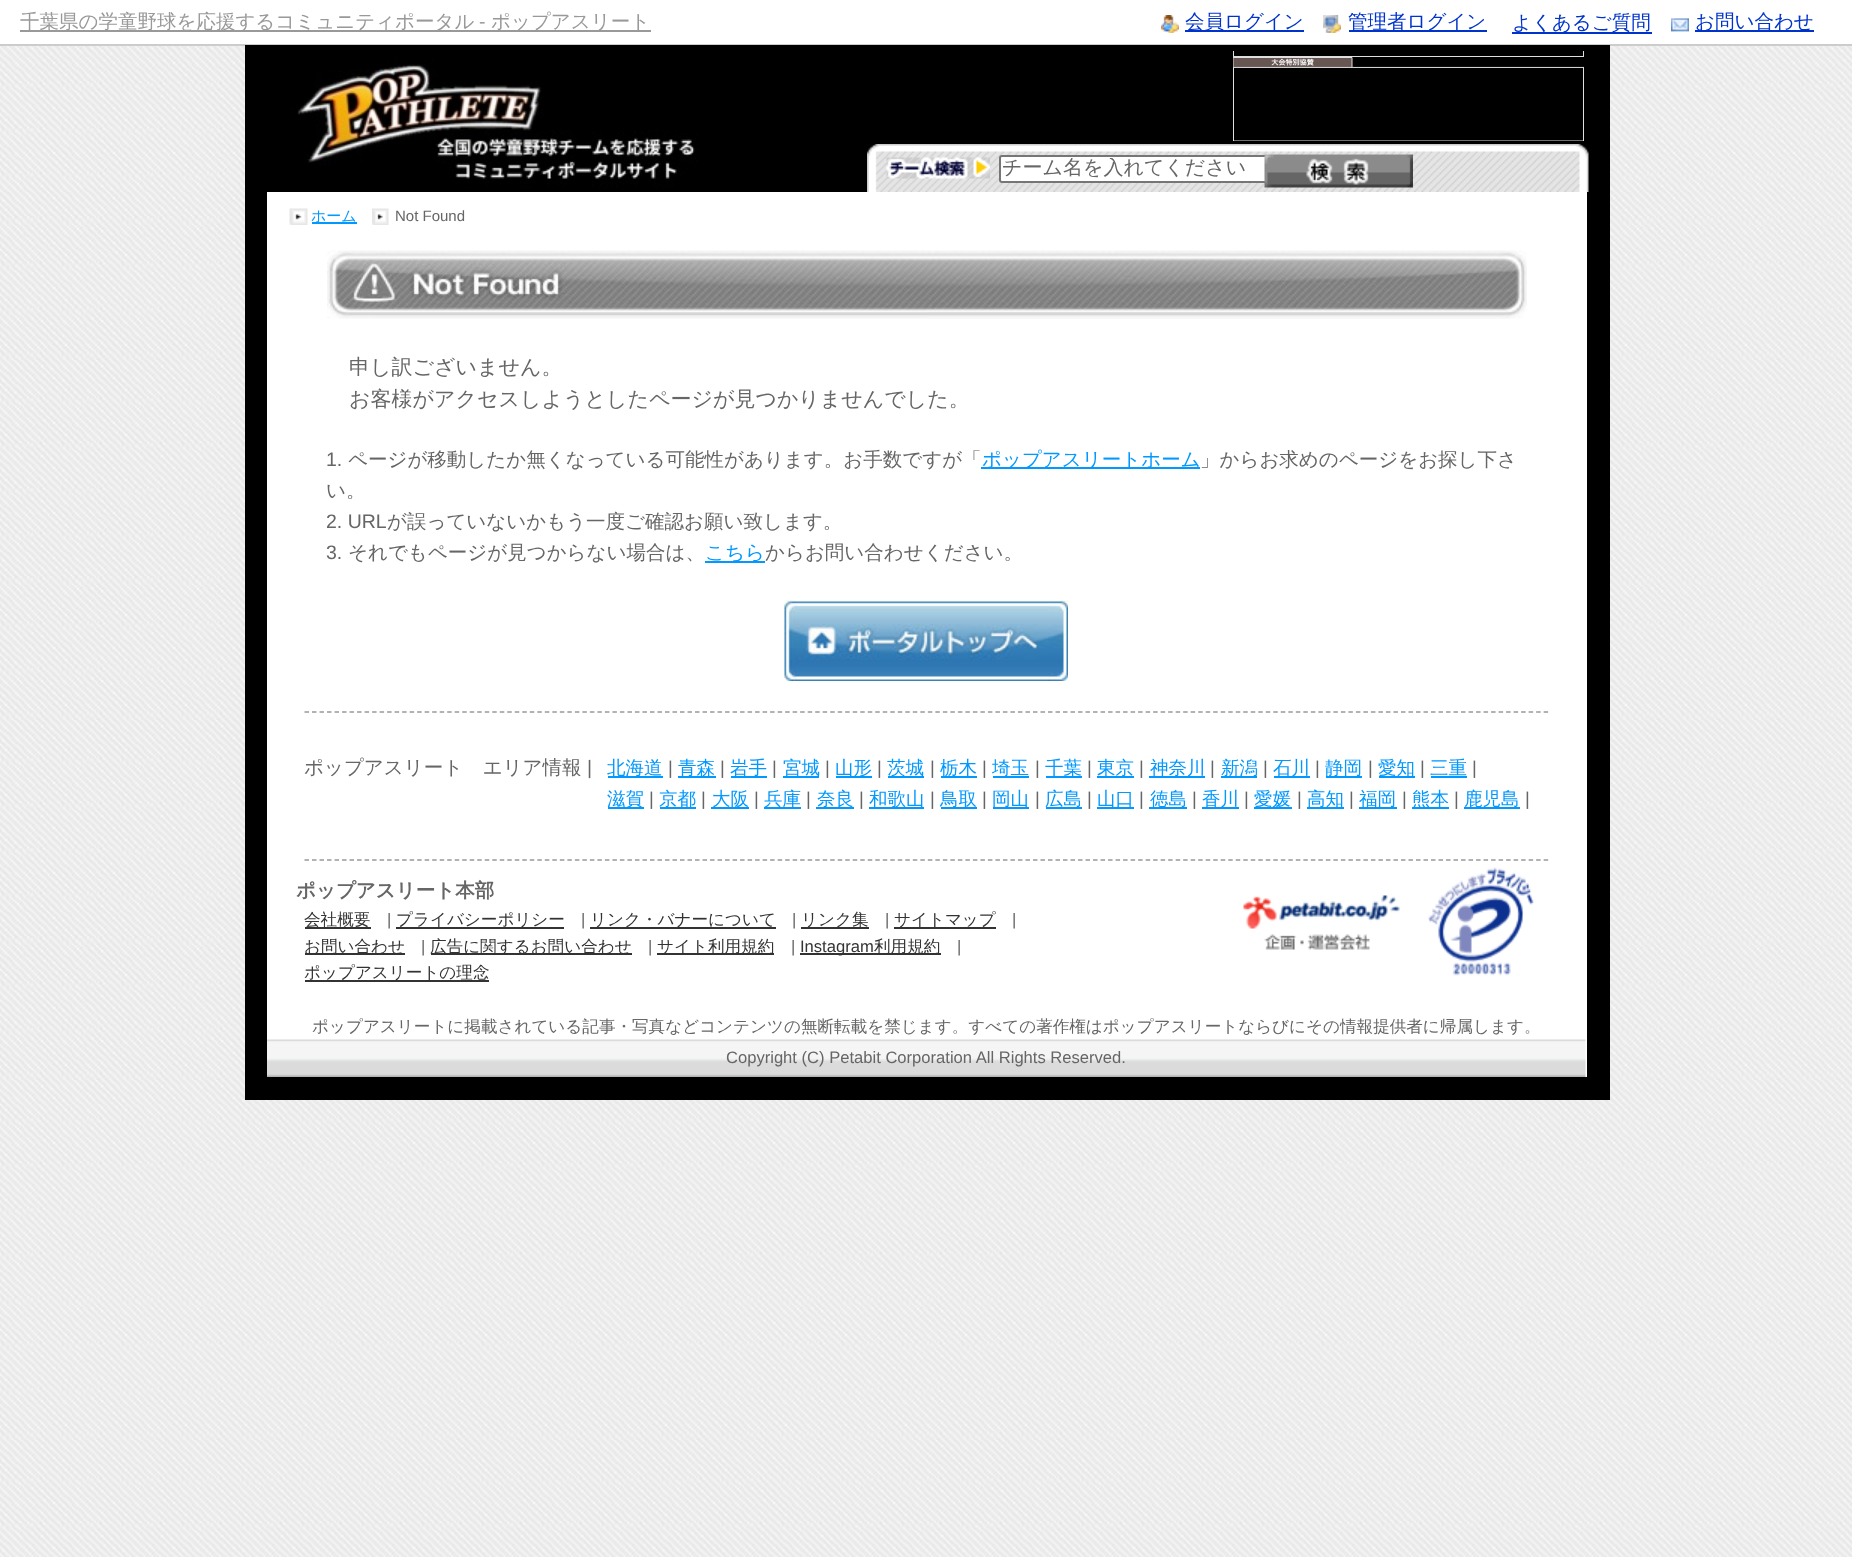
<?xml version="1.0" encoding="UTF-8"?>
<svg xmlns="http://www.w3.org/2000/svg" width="1852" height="1557">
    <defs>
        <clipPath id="clip1"><rect x="1002" y="158" width="300" height="22"/></clipPath>
    </defs>
    <rect width="100%" height="100%" fill="#FFFFFF"/>
    <image x="0" y="46" width="1852" height="1511" href="img_01.png"/>
    <rect x="0" y="44" width="1852" height="2" fill="#CCCCCC"/>
    <rect x="20" y="30" width="631" height="2" fill="#999999"/>
    <text x="20" y="28" font-family="WenQuanYi Zen Hei" font-size="19.5" font-weight="500" fill="#999999">千葉県の学童野球を応援するコミュニティポータル</text>
    <text x="479" y="28" font-family="Liberation Sans" font-size="19.5" fill="#999999">-</text>
    <text x="491" y="28" font-family="WenQuanYi Zen Hei" font-size="19.5" font-weight="500" fill="#999999">ポップアスリート</text>
    <image x="1161" y="15" width="18" height="18" href="img_02.png"/>
    <rect x="1185" y="30" width="119" height="2" fill="#0033CC"/>
    <text x="1185" y="28" font-family="WenQuanYi Zen Hei" font-size="19.5" font-weight="500" fill="#0033CC">会員ログイン</text>
    <image x="1323" y="15" width="18" height="18" href="img_03.png"/>
    <rect x="1349" y="30" width="138" height="2" fill="#0033CC"/>
    <text x="1348" y="28" font-family="WenQuanYi Zen Hei" font-size="19.5" font-weight="500" fill="#0033CC">管理者ログイン</text>
    <rect x="1512" y="32" width="140" height="2" fill="#0033CC"/>
    <text x="1512" y="29" font-family="WenQuanYi Zen Hei" font-size="19.5" font-weight="500" fill="#0033CC">よくあるご質問</text>
    <image x="1671" y="18" width="18" height="14" href="img_04.png"/>
    <rect x="1695" y="30" width="119" height="2" fill="#0033CC"/>
    <text x="1695" y="28" font-family="WenQuanYi Zen Hei" font-size="19.5" font-weight="500" fill="#0033CC">お問い合わせ</text>
    <rect x="245" y="45" width="1365" height="1055" fill="#000000"/>
    <rect x="267" y="192" width="1320" height="885" fill="#FFFFFF"/>
    <image x="267" y="45" width="1320" height="147" href="img_05.png"/>
    <image x="1233" y="51" width="351" height="90" href="img_06.png"/>
    <image x="867" y="144" width="722" height="48" href="img_07.png"/>
    <image x="886" y="157" width="104" height="22" href="img_08.png"/>
    <rect x="1000" y="156" width="304" height="26" rx="2" fill="#FFFFFF" stroke="#767676" stroke-width="2"/>
    <g clip-path="url(#clip1)">
        <text x="1002" y="174" font-family="WenQuanYi Zen Hei" font-size="20" font-weight="500" fill="#666666">チーム名を入れてください</text>
    </g>
    <image x="1264" y="154" width="149" height="34" href="img_09.png"/>
    <image x="289" y="208" width="19" height="17" href="img_10.png"/>
    <rect x="312" y="222" width="45" height="2" fill="#0198FF"/>
    <text x="311" y="221" font-family="WenQuanYi Zen Hei" font-size="15" font-weight="500" fill="#0198FF">ホーム</text>
    <image x="372" y="208" width="17" height="17" href="img_11.png"/>
    <text x="395" y="221" font-family="Liberation Sans" font-size="15" fill="#666666">Not Found</text>
    <image x="327" y="250" width="1200" height="69" href="img_12.png"/>
    <text font-family="WenQuanYi Zen Hei" font-size="21" font-weight="500" fill="#666666">
        <tspan x="349" y="374">申し訳ございません。</tspan>
        <tspan x="349" y="406">お客様がアクセスしようとしたページが見つかりませんでした。</tspan>
    </text>
    <text x="326" y="466" font-family="Liberation Sans" font-size="19.5" fill="#666666">1.</text>
    <text x="348" y="466" font-family="WenQuanYi Zen Hei" font-size="19.5" font-weight="500" fill="#666666">ページが移動したか無くなっている可能性があります。お手数ですが「</text>
    <rect x="981" y="467" width="219" height="2" fill="#0198FF"/>
    <text x="982" y="466" font-family="WenQuanYi Zen Hei" font-size="19.5" font-weight="500" fill="#0198FF">ポップアスリートホーム</text>
    <text x="1200" y="466" font-family="WenQuanYi Zen Hei" font-size="19.5" font-weight="500" fill="#666666">」からお求めのページをお探し下さ</text>
    <text x="326" y="497" font-family="WenQuanYi Zen Hei" font-size="19.5" font-weight="500" fill="#666666">い。</text>
    <text x="326" y="528" font-family="Liberation Sans" font-size="19.5" fill="#666666">2. URL</text>
    <text x="387" y="528" font-family="WenQuanYi Zen Hei" font-size="19.5" font-weight="500" fill="#666666">が誤っていないかもう一度ご確認お願い致します。</text>
    <text x="326" y="559" font-family="Liberation Sans" font-size="19.5" fill="#666666">3.</text>
    <text x="348" y="559" font-family="WenQuanYi Zen Hei" font-size="19.5" font-weight="500" fill="#666666">それでもページが見つからない場合は、</text>
    <rect x="705" y="561" width="60" height="2" fill="#0198FF"/>
    <text x="705" y="559" font-family="WenQuanYi Zen Hei" font-size="19.5" font-weight="500" fill="#0198FF">こちら</text>
    <text x="765" y="559" font-family="WenQuanYi Zen Hei" font-size="19.5" font-weight="500" fill="#666666">からお問い合わせください。</text>
    <image x="784" y="600" width="284" height="81" href="img_13.png"/>
    <path d="M 304.5 712 H 1549.5" fill="none" stroke="#999999" stroke-width="1.5" stroke-dasharray="4.5 3.01"/>
    <path d="M 304.5 860 H 1549.5" fill="none" stroke="#999999" stroke-width="1.5" stroke-dasharray="4.5 3.01"/>
    <text x="304" y="774" font-family="WenQuanYi Zen Hei" font-size="19.5" font-weight="500" fill="#666666">ポップアスリート　エリア情報</text>
    <text x="587" y="774" font-family="Liberation Sans" font-size="19.5" fill="#666666">|</text>
    <rect x="608" y="776" width="55" height="2" fill="#0198FF"/>
    <text x="607" y="774" font-family="WenQuanYi Zen Hei" font-size="18.5" font-weight="500" fill="#0198FF">北海道</text>
    <text x="668" y="774" font-family="Liberation Sans" font-size="18.5" fill="#666666">|</text>
    <rect x="678" y="776" width="38" height="2" fill="#0198FF"/>
    <text x="678" y="774" font-family="WenQuanYi Zen Hei" font-size="18.5" font-weight="500" fill="#0198FF">青森</text>
    <text x="720" y="774" font-family="Liberation Sans" font-size="18.5" fill="#666666">|</text>
    <rect x="731" y="776" width="36" height="2" fill="#0198FF"/>
    <text x="730" y="774" font-family="WenQuanYi Zen Hei" font-size="18.5" font-weight="500" fill="#0198FF">岩手</text>
    <text x="772" y="774" font-family="Liberation Sans" font-size="18.5" fill="#666666">|</text>
    <rect x="783" y="776" width="36" height="2" fill="#0198FF"/>
    <text x="783" y="774" font-family="WenQuanYi Zen Hei" font-size="18.5" font-weight="500" fill="#0198FF">宮城</text>
    <text x="825" y="774" font-family="Liberation Sans" font-size="18.5" fill="#666666">|</text>
    <rect x="836" y="776" width="36" height="2" fill="#0198FF"/>
    <text x="835" y="774" font-family="WenQuanYi Zen Hei" font-size="18.5" font-weight="500" fill="#0198FF">山形</text>
    <text x="877" y="774" font-family="Liberation Sans" font-size="18.5" fill="#666666">|</text>
    <rect x="888" y="776" width="36" height="2" fill="#0198FF"/>
    <text x="887" y="774" font-family="WenQuanYi Zen Hei" font-size="18.5" font-weight="500" fill="#0198FF">茨城</text>
    <text x="930" y="774" font-family="Liberation Sans" font-size="18.5" fill="#666666">|</text>
    <rect x="941" y="776" width="36" height="2" fill="#0198FF"/>
    <text x="940" y="774" font-family="WenQuanYi Zen Hei" font-size="18.5" font-weight="500" fill="#0198FF">栃木</text>
    <text x="982" y="774" font-family="Liberation Sans" font-size="18.5" fill="#666666">|</text>
    <rect x="993" y="776" width="36" height="2" fill="#0198FF"/>
    <text x="992" y="774" font-family="WenQuanYi Zen Hei" font-size="18.5" font-weight="500" fill="#0198FF">埼玉</text>
    <text x="1035" y="774" font-family="Liberation Sans" font-size="18.5" fill="#666666">|</text>
    <rect x="1046" y="776" width="36" height="2" fill="#0198FF"/>
    <text x="1045" y="774" font-family="WenQuanYi Zen Hei" font-size="18.5" font-weight="500" fill="#0198FF">千葉</text>
    <text x="1087" y="774" font-family="Liberation Sans" font-size="18.5" fill="#666666">|</text>
    <rect x="1097" y="776" width="37" height="2" fill="#0198FF"/>
    <text x="1097" y="774" font-family="WenQuanYi Zen Hei" font-size="18.5" font-weight="500" fill="#0198FF">東京</text>
    <text x="1139" y="774" font-family="Liberation Sans" font-size="18.5" fill="#666666">|</text>
    <rect x="1149" y="776" width="56" height="2" fill="#0198FF"/>
    <text x="1150" y="774" font-family="WenQuanYi Zen Hei" font-size="18.5" font-weight="500" fill="#0198FF">神奈川</text>
    <text x="1210" y="774" font-family="Liberation Sans" font-size="18.5" fill="#666666">|</text>
    <rect x="1221" y="776" width="36" height="2" fill="#0198FF"/>
    <text x="1221" y="774" font-family="WenQuanYi Zen Hei" font-size="18.5" font-weight="500" fill="#0198FF">新潟</text>
    <text x="1263" y="774" font-family="Liberation Sans" font-size="18.5" fill="#666666">|</text>
    <rect x="1274" y="776" width="36" height="2" fill="#0198FF"/>
    <text x="1273" y="774" font-family="WenQuanYi Zen Hei" font-size="18.5" font-weight="500" fill="#0198FF">石川</text>
    <text x="1315" y="774" font-family="Liberation Sans" font-size="18.5" fill="#666666">|</text>
    <rect x="1326" y="776" width="36" height="2" fill="#0198FF"/>
    <text x="1325" y="774" font-family="WenQuanYi Zen Hei" font-size="18.5" font-weight="500" fill="#0198FF">静岡</text>
    <text x="1368" y="774" font-family="Liberation Sans" font-size="18.5" fill="#666666">|</text>
    <rect x="1379" y="776" width="36" height="2" fill="#0198FF"/>
    <text x="1378" y="774" font-family="WenQuanYi Zen Hei" font-size="18.5" font-weight="500" fill="#0198FF">愛知</text>
    <text x="1420" y="774" font-family="Liberation Sans" font-size="18.5" fill="#666666">|</text>
    <text x="1430" y="774" font-family="WenQuanYi Zen Hei" font-size="18.5" font-weight="500" fill="#0198FF">三重</text>
    <rect x="1431" y="776" width="36" height="2" fill="#0198FF"/>
    <text x="1472" y="774" font-family="Liberation Sans" font-size="18.5" fill="#666666">|</text>
    <rect x="608" y="807" width="36" height="2" fill="#0198FF"/>
    <text x="607" y="805" font-family="WenQuanYi Zen Hei" font-size="18.5" font-weight="500" fill="#0198FF">滋賀</text>
    <text x="649" y="805" font-family="Liberation Sans" font-size="18.5" fill="#666666">|</text>
    <rect x="660" y="807" width="36" height="2" fill="#0198FF"/>
    <text x="659" y="805" font-family="WenQuanYi Zen Hei" font-size="18.5" font-weight="500" fill="#0198FF">京都</text>
    <text x="701" y="805" font-family="Liberation Sans" font-size="18.5" fill="#666666">|</text>
    <rect x="711" y="807" width="38" height="2" fill="#0198FF"/>
    <text x="712" y="805" font-family="WenQuanYi Zen Hei" font-size="18.5" font-weight="500" fill="#0198FF">大阪</text>
    <text x="754" y="805" font-family="Liberation Sans" font-size="18.5" fill="#666666">|</text>
    <rect x="764" y="807" width="37" height="2" fill="#0198FF"/>
    <text x="764" y="805" font-family="WenQuanYi Zen Hei" font-size="18.5" font-weight="500" fill="#0198FF">兵庫</text>
    <text x="806" y="805" font-family="Liberation Sans" font-size="18.5" fill="#666666">|</text>
    <rect x="816" y="807" width="38" height="2" fill="#0198FF"/>
    <text x="817" y="805" font-family="WenQuanYi Zen Hei" font-size="18.5" font-weight="500" fill="#0198FF">奈良</text>
    <text x="859" y="805" font-family="Liberation Sans" font-size="18.5" fill="#666666">|</text>
    <rect x="869" y="807" width="55" height="2" fill="#0198FF"/>
    <text x="869" y="805" font-family="WenQuanYi Zen Hei" font-size="18.5" font-weight="500" fill="#0198FF">和歌山</text>
    <text x="930" y="805" font-family="Liberation Sans" font-size="18.5" fill="#666666">|</text>
    <rect x="941" y="807" width="36" height="2" fill="#0198FF"/>
    <text x="940" y="805" font-family="WenQuanYi Zen Hei" font-size="18.5" font-weight="500" fill="#0198FF">鳥取</text>
    <text x="982" y="805" font-family="Liberation Sans" font-size="18.5" fill="#666666">|</text>
    <rect x="993" y="807" width="36" height="2" fill="#0198FF"/>
    <text x="992" y="805" font-family="WenQuanYi Zen Hei" font-size="18.5" font-weight="500" fill="#0198FF">岡山</text>
    <text x="1035" y="805" font-family="Liberation Sans" font-size="18.5" fill="#666666">|</text>
    <rect x="1046" y="807" width="36" height="2" fill="#0198FF"/>
    <text x="1045" y="805" font-family="WenQuanYi Zen Hei" font-size="18.5" font-weight="500" fill="#0198FF">広島</text>
    <text x="1087" y="805" font-family="Liberation Sans" font-size="18.5" fill="#666666">|</text>
    <rect x="1097" y="807" width="37" height="2" fill="#0198FF"/>
    <text x="1097" y="805" font-family="WenQuanYi Zen Hei" font-size="18.5" font-weight="500" fill="#0198FF">山口</text>
    <text x="1139" y="805" font-family="Liberation Sans" font-size="18.5" fill="#666666">|</text>
    <rect x="1149" y="807" width="38" height="2" fill="#0198FF"/>
    <text x="1150" y="805" font-family="WenQuanYi Zen Hei" font-size="18.5" font-weight="500" fill="#0198FF">徳島</text>
    <text x="1192" y="805" font-family="Liberation Sans" font-size="18.5" fill="#666666">|</text>
    <rect x="1202" y="807" width="37" height="2" fill="#0198FF"/>
    <text x="1202" y="805" font-family="WenQuanYi Zen Hei" font-size="18.5" font-weight="500" fill="#0198FF">香川</text>
    <text x="1244" y="805" font-family="Liberation Sans" font-size="18.5" fill="#666666">|</text>
    <rect x="1254" y="807" width="38" height="2" fill="#0198FF"/>
    <text x="1254" y="805" font-family="WenQuanYi Zen Hei" font-size="18.5" font-weight="500" fill="#0198FF">愛媛</text>
    <text x="1297" y="805" font-family="Liberation Sans" font-size="18.5" fill="#666666">|</text>
    <rect x="1307" y="807" width="37" height="2" fill="#0198FF"/>
    <text x="1307" y="805" font-family="WenQuanYi Zen Hei" font-size="18.5" font-weight="500" fill="#0198FF">高知</text>
    <text x="1349" y="805" font-family="Liberation Sans" font-size="18.5" fill="#666666">|</text>
    <rect x="1359" y="807" width="38" height="2" fill="#0198FF"/>
    <text x="1359" y="805" font-family="WenQuanYi Zen Hei" font-size="18.5" font-weight="500" fill="#0198FF">福岡</text>
    <text x="1402" y="805" font-family="Liberation Sans" font-size="18.5" fill="#666666">|</text>
    <rect x="1412" y="807" width="37" height="2" fill="#0198FF"/>
    <text x="1412" y="805" font-family="WenQuanYi Zen Hei" font-size="18.5" font-weight="500" fill="#0198FF">熊本</text>
    <text x="1454" y="805" font-family="Liberation Sans" font-size="18.5" fill="#666666">|</text>
    <rect x="1464" y="807" width="56" height="2" fill="#0198FF"/>
    <text x="1464" y="805" font-family="WenQuanYi Zen Hei" font-size="18.5" font-weight="500" fill="#0198FF">鹿児島</text>
    <text x="1525" y="805" font-family="Liberation Sans" font-size="18.5" fill="#666666">|</text>
    <text x="296" y="897" font-family="WenQuanYi Zen Hei" font-size="19.5" font-weight="700" fill="#666666">ポップアスリート本部</text>
    <image x="1243" y="895" width="157" height="55" href="img_14.png"/>
    <image x="1428" y="867" width="106" height="109" href="img_15.png"/>
    <rect x="305" y="927" width="66" height="2" fill="#333333"/>
    <text x="304" y="925" font-family="WenQuanYi Zen Hei" font-size="16.58" font-weight="500" fill="#333333">会社概要</text>
    <text x="387" y="925" font-family="Liberation Sans" font-size="16.58" fill="#666666">|</text>
    <rect x="396" y="927" width="168" height="2" fill="#333333"/>
    <text x="396" y="925" font-family="WenQuanYi Zen Hei" font-size="16.58" font-weight="500" fill="#333333">プライバシーポリシー</text>
    <text x="581" y="925" font-family="Liberation Sans" font-size="16.58" fill="#666666">|</text>
    <rect x="590" y="927" width="186" height="2" fill="#333333"/>
    <text x="590" y="925" font-family="WenQuanYi Zen Hei" font-size="16.58" font-weight="500" fill="#333333">リンク・バナーについて</text>
    <text x="792" y="925" font-family="Liberation Sans" font-size="16.58" fill="#666666">|</text>
    <rect x="801" y="927" width="68" height="2" fill="#333333"/>
    <text x="801" y="925" font-family="WenQuanYi Zen Hei" font-size="16.58" font-weight="500" fill="#333333">リンク集</text>
    <text x="885" y="925" font-family="Liberation Sans" font-size="16.58" fill="#666666">|</text>
    <rect x="894" y="927" width="102" height="2" fill="#333333"/>
    <text x="894" y="925" font-family="WenQuanYi Zen Hei" font-size="16.58" font-weight="500" fill="#333333">サイトマップ</text>
    <text x="1012" y="925" font-family="Liberation Sans" font-size="16.58" fill="#666666">|</text>
    <rect x="305" y="953" width="100" height="2" fill="#333333"/>
    <text x="304" y="952" font-family="WenQuanYi Zen Hei" font-size="16.58" font-weight="500" fill="#333333">お問い合わせ</text>
    <text x="421" y="952" font-family="Liberation Sans" font-size="16.58" fill="#666666">|</text>
    <rect x="431" y="953" width="201" height="2" fill="#333333"/>
    <text x="430" y="952" font-family="WenQuanYi Zen Hei" font-size="16.58" font-weight="500" fill="#333333">広告に関するお問い合わせ</text>
    <text x="648" y="952" font-family="Liberation Sans" font-size="16.58" fill="#666666">|</text>
    <rect x="657" y="953" width="117" height="2" fill="#333333"/>
    <text x="657" y="952" font-family="WenQuanYi Zen Hei" font-size="16.58" font-weight="500" fill="#333333">サイト利用規約</text>
    <text x="791" y="952" font-family="Liberation Sans" font-size="16.58" fill="#666666">|</text>
    <rect x="800" y="953" width="141" height="2" fill="#333333"/>
    <text x="800" y="952" font-family="Liberation Sans" font-size="16.58" fill="#333333">Instagram</text>
    <text x="874" y="952" font-family="WenQuanYi Zen Hei" font-size="16.58" font-weight="500" fill="#333333">利用規約</text>
    <text x="957" y="952" font-family="Liberation Sans" font-size="16.58" fill="#666666">|</text>
    <rect x="305" y="980" width="184" height="2" fill="#333333"/>
    <text x="304" y="978" font-family="WenQuanYi Zen Hei" font-size="16.58" font-weight="500" fill="#333333">ポップアスリートの理念</text>
    <image x="267" y="1039" width="1319" height="38" href="img_16.png"/>
    <text x="312" y="1032" font-family="WenQuanYi Zen Hei" font-size="16.58" font-weight="500" fill="#666666">ポップアスリートに掲載されている記事・写真などコンテンツの無断転載を禁じます。すべての著作権はポップアスリートならびにその情報提供者に帰属します。</text>
    <text x="726" y="1063" font-family="Liberation Sans" font-size="16.58" fill="#666666">Copyright (C) Petabit Corporation All Rights Reserved.</text>
</svg>
